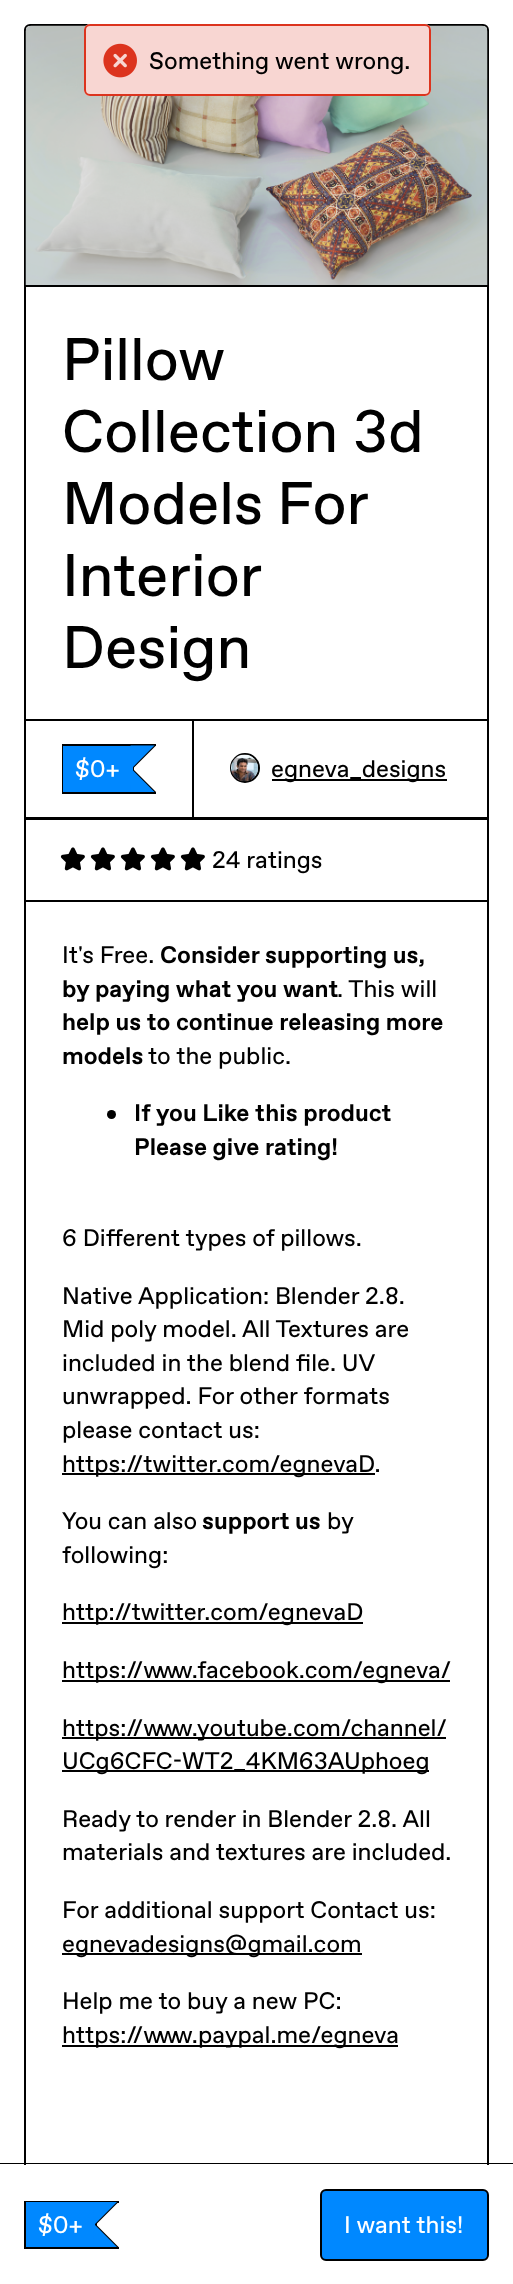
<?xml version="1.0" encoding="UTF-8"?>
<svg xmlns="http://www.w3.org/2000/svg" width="513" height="2284">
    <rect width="100%" height="100%" fill="#FFFFFF"/>
    <rect x="25" y="25" width="463" height="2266" rx="5" fill="none" stroke="#000000" stroke-width="2"/>
    <image x="25" y="25" width="463" height="260" href="img_02.png"/>
    <rect x="84" y="24" width="347" height="72" rx="6" fill="#FFFFFF"/>
    <rect x="85" y="25" width="345" height="70" rx="5" fill="#DC341E" fill-opacity="0.2" stroke="#DC341E" stroke-width="2"/>
    <image x="103" y="43" width="34" height="35" href="img_01.png"/>
    <text x="149" y="69" font-family="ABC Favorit" font-size="24" fill="#000000">Something went wrong.</text>
    <rect x="26" y="285" width="462" height="2" fill="#000000"/>
    <text font-family="ABC Favorit" font-size="60" fill="#000000">
        <tspan x="62" y="380">Pillow</tspan>
        <tspan x="62" y="452">Collection 3d</tspan>
        <tspan x="62" y="524" word-spacing="-1">Models For</tspan>
        <tspan x="62" y="596">Interior</tspan>
        <tspan x="62" y="668">Design</tspan>
    </text>
    <rect x="25" y="720" width="168" height="98" fill="none" stroke="#000000" stroke-width="2"/>
    <rect x="62" y="744" width="94" height="2" fill="#000000"/>
    <rect x="62" y="792" width="94" height="2" fill="#000000"/>
    <rect x="62" y="744" width="2" height="50" fill="#000000"/>
    <rect x="63" y="746" width="68" height="46" fill="#0088FF"/>
    <path d="M 132 745.5 H 156 L 133.5 768 Z M 156 792 H 132 L 133.5 769.5 Z" fill="#000000"/>
    <rect x="133" y="766" width="1" height="6" fill="#000000"/>
    <path d="M 130.5 745.5 H 154.5 L 132 768 Z M 154.5 792 H 130.5 L 132 769.5 Z" fill="#0088FF"/>
    <rect x="131" y="746" width="2" height="46" fill="#0088FF"/>
    <text x="75" y="777" font-family="ABC Favorit" font-size="24" fill="#FFFFFF">$0+</text>
    <rect x="193" y="720" width="295" height="98" fill="none" stroke="#000000" stroke-width="2"/>
    <circle cx="245" cy="768" r="14" fill="none" stroke="#000000" stroke-width="2"/>
    <image x="231" y="754" width="27" height="28" href="img_03.png"/>
    <rect x="272" y="779" width="175" height="2" fill="#000000"/>
    <text x="271" y="777" font-family="ABC Favorit" font-size="24" fill="#000000">egneva_designs</text>
    <rect x="25" y="819" width="463" height="82" fill="none" stroke="#000000" stroke-width="2"/>
    <image x="60" y="847" width="25" height="24" href="img_04.png"/>
    <image x="90" y="847" width="25" height="24" href="img_04.png"/>
    <image x="120" y="847" width="25" height="24" href="img_04.png"/>
    <image x="150" y="847" width="25" height="24" href="img_04.png"/>
    <image x="180" y="847" width="25" height="24" href="img_04.png"/>
    <text x="212" y="868" font-family="ABC Favorit" font-size="24" fill="#000000">24 ratings</text>
    <text x="62" y="963" font-family="ABC Favorit" font-size="24" fill="#000000">It's Free.</text>
    <text x="160" y="963" font-family="ABC Favorit" font-size="24" font-weight="700" fill="#000000">Consider supporting us,</text>
    <text x="62" y="997" font-family="ABC Favorit" font-size="24" font-weight="700" fill="#000000">by paying what you want</text>
    <text x="337" y="997" font-family="ABC Favorit" font-size="24" fill="#000000">. This will</text>
    <text font-family="ABC Favorit" font-size="24" font-weight="700" fill="#000000">
        <tspan x="62" y="1030">help us to continue releasing more</tspan>
        <tspan x="62" y="1064">models</tspan>
    </text>
    <text x="148" y="1064" font-family="ABC Favorit" font-size="24" fill="#000000">to the public.</text>
    <circle cx="111.5" cy="1114.5" r="4.5" fill="#000000"/>
    <text font-family="ABC Favorit" font-size="24" font-weight="700" fill="#000000">
        <tspan x="134" y="1121">If you Like this product</tspan>
        <tspan x="134" y="1155">Please give rating!</tspan>
    </text>
    <text x="62" y="1246" font-family="ABC Favorit" font-size="24" fill="#000000">6 Different types of pillows.</text>
    <text font-family="ABC Favorit" font-size="24" fill="#000000">
        <tspan x="62" y="1304">Native Application: Blender 2.8.</tspan>
        <tspan x="62" y="1337">Mid poly model. All Textures are</tspan>
        <tspan x="62" y="1371">included in the blend file. UV</tspan>
        <tspan x="62" y="1404">unwrapped. For other formats</tspan>
        <tspan x="62" y="1438">please contact us:</tspan>
    </text>
    <rect x="62" y="1473" width="313" height="2" fill="#000000"/>
    <text x="62" y="1472" font-family="ABC Favorit" font-size="24" fill="#000000">https://twitter.com/egnevaD.</text>
    <text x="62" y="1529" font-family="ABC Favorit" font-size="24" fill="#000000">You can also</text>
    <text x="202" y="1529" font-family="ABC Favorit" font-size="24" font-weight="700" fill="#000000">support us</text>
    <text x="327" y="1529" font-family="ABC Favorit" font-size="24" fill="#000000">by</text>
    <text x="62" y="1563" font-family="ABC Favorit" font-size="24" fill="#000000">following:</text>
    <rect x="62" y="1622" width="301" height="2" fill="#000000"/>
    <text x="62" y="1620" font-family="ABC Favorit" font-size="24" fill="#000000">http://twitter.com/egnevaD</text>
    <rect x="62" y="1680" width="388" height="2" fill="#000000"/>
    <text x="62" y="1678" font-family="ABC Favorit" font-size="24" fill="#000000">https://www.facebook.com/egneva/</text>
    <rect x="62" y="1737" width="384" height="2" fill="#000000"/>
    <text x="62" y="1736" font-family="ABC Favorit" font-size="24" fill="#000000">https://www.youtube.com/channel/</text>
    <rect x="62" y="1770" width="367" height="2" fill="#000000"/>
    <text x="62" y="1769" font-family="ABC Favorit" font-size="24" fill="#000000">UCg6CFC-WT2_4KM63AUphoeg</text>
    <text font-family="ABC Favorit" font-size="24" fill="#000000">
        <tspan x="62" y="1827">Ready to render in Blender 2.8. All</tspan>
        <tspan x="62" y="1860">materials and textures are included.</tspan>
    </text>
    <text x="62" y="1918" font-family="ABC Favorit" font-size="24" fill="#000000">For additional support Contact us:</text>
    <rect x="62" y="1953" width="300" height="2" fill="#000000"/>
    <text x="62" y="1952" font-family="ABC Favorit" font-size="24" fill="#000000">egnevadesigns@gmail.com</text>
    <text x="62" y="2009" font-family="ABC Favorit" font-size="24" fill="#000000">Help me to buy a new PC:</text>
    <rect x="62" y="2045" width="336" height="2" fill="#000000"/>
    <text x="62" y="2043" font-family="ABC Favorit" font-size="24" fill="#000000">https://www.paypal.me/egneva</text>
    <rect x="0" y="2163" width="513" height="1" fill="#000000"/>
    <rect x="24" y="2165" width="465" height="119" fill="#FFFFFF"/>
    <rect x="24" y="2201" width="95" height="2" fill="#000000"/>
    <rect x="24" y="2247" width="95" height="2" fill="#000000"/>
    <rect x="24" y="2201" width="2" height="48" fill="#000000"/>
    <rect x="26" y="2202" width="69" height="45" fill="#0088FF"/>
    <path d="M 94.5 2202 H 118.5 L 96 2224.5 Z" fill="#000000"/>
    <path d="M 118.5 2247 H 94.5 L 96 2224.5 Z" fill="#000000"/>
    <rect x="95" y="2222" width="2" height="5" fill="#000000"/>
    <path d="M 93 2202 H 117 L 94.5 2224.5 Z" fill="#0088FF"/>
    <path d="M 117 2247 H 93 L 94.5 2224.5 Z" fill="#0088FF"/>
    <text x="38" y="2233" font-family="ABC Favorit" font-size="24" fill="#FFFFFF">$0+</text>
    <rect x="321" y="2190" width="167" height="70" rx="5" fill="#0088FF" stroke="#000000" stroke-width="2"/>
    <text x="344" y="2233" font-family="ABC Favorit" font-size="24" fill="#FFFFFF">I want this!</text>
</svg>
